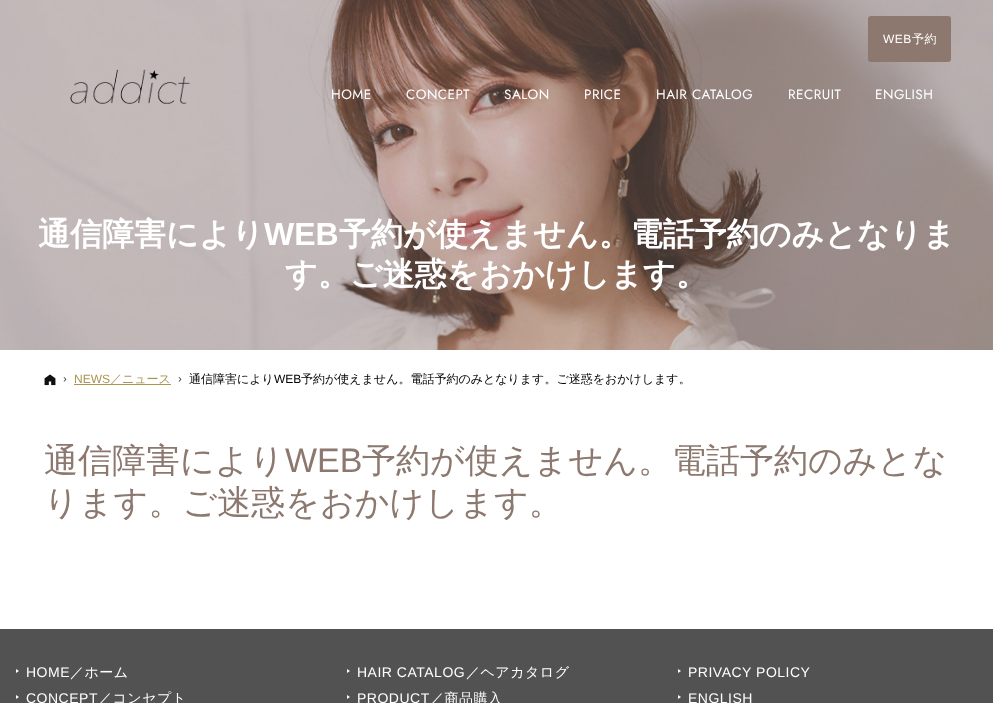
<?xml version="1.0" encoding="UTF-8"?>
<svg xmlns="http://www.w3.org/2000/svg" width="993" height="703">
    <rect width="100%" height="100%" fill="#FFFFFF"/>
    <image x="0" y="0" width="993" height="350" href="img_01.png"/>
    <rect x="868" y="16" width="83" height="46" rx="3" fill="#8C786E"/>
    <text x="883" y="43" font-family="Liberation Sans" font-size="12" letter-spacing="0.5" fill="#FFFFFF">WEB</text>
    <text x="912" y="43" font-family="WenQuanYi Zen Hei" font-size="12" font-weight="500" letter-spacing="0.5" fill="#FFFFFF">予約</text>
    <text x="331" y="99" font-family="Jost" font-size="13.5" letter-spacing="0.5" fill="#FFFFFF">HOME</text>
    <text x="406" y="99" font-family="Jost" font-size="13.5" letter-spacing="0.5" fill="#FFFFFF">CONCEPT</text>
    <text x="504" y="99" font-family="Jost" font-size="13.5" letter-spacing="0.5" fill="#FFFFFF">SALON</text>
    <text x="584" y="99" font-family="Jost" font-size="13.5" letter-spacing="0.5" fill="#FFFFFF">PRICE</text>
    <text x="656" y="99" font-family="Jost" font-size="13.5" letter-spacing="0.5" fill="#FFFFFF">HAIR CATALOG</text>
    <text x="788" y="99" font-family="Jost" font-size="13.5" letter-spacing="0.5" fill="#FFFFFF">RECRUIT</text>
    <text x="875" y="99" font-family="Jost" font-size="13.5" letter-spacing="0.5" fill="#FFFFFF">ENGLISH</text>
    <image x="70" y="69" width="120" height="35" href="img_02.png"/>
    <text x="38" y="245" font-family="WenQuanYi Zen Hei" font-size="32" font-weight="700" fill="#FFFFFF">通信障害により</text>
    <text x="264" y="245" font-family="Liberation Sans" font-size="32" font-weight="700" fill="#FFFFFF">WEB</text>
    <text x="339" y="245" font-family="WenQuanYi Zen Hei" font-size="32" font-weight="700" fill="#FFFFFF">予約が使えません。電話予約のみとなりま</text>
    <text x="285" y="285" font-family="WenQuanYi Zen Hei" font-size="32" font-weight="700" fill="#FFFFFF">す。ご迷惑をおかけします。</text>
    <image x="44" y="374" width="12" height="12" href="img_03.png"/>
    <image x="63" y="377" width="4" height="5" href="img_04.png"/>
    <text x="74" y="383" font-family="Liberation Sans" font-size="12" fill="#AC9451">NEWS</text>
    <rect x="74" y="384" width="97" height="1" fill="#AC9451"/>
    <text x="110" y="383" font-family="WenQuanYi Zen Hei" font-size="12" font-weight="500" fill="#AC9451">／ニュース</text>
    <image x="178" y="377" width="4" height="5" href="img_04.png"/>
    <text x="189" y="383" font-family="WenQuanYi Zen Hei" font-size="12" font-weight="500" fill="#000000">通信障害により</text>
    <text x="274" y="383" font-family="Liberation Sans" font-size="12" fill="#000000">WEB</text>
    <text x="301" y="383" font-family="WenQuanYi Zen Hei" font-size="12" font-weight="500" fill="#000000">予約が使えません。電話予約のみとなります。ご迷惑をおかけします。</text>
    <text x="44" y="472" font-family="WenQuanYi Zen Hei" font-size="34" font-weight="500" fill="#8C786E">通信障害により</text>
    <text x="285" y="472" font-family="Liberation Sans" font-size="34" fill="#8C786E">WEB</text>
    <text x="362" y="472" font-family="WenQuanYi Zen Hei" font-size="34" font-weight="500" fill="#8C786E">予約が使えません。電話予約のみとな</text>
    <text x="44" y="514" font-family="WenQuanYi Zen Hei" font-size="34" font-weight="500" fill="#8C786E">ります。ご迷惑をおかけします。</text>
    <rect x="0" y="629" width="993" height="74" fill="#525252"/>
    <path d="M 16 673 V 669 L 19 671 Z" fill="#FFFFFF"/>
    <text x="26" y="677" font-family="Liberation Sans" font-size="14" letter-spacing="0.5" fill="#FFFFFF">HOME</text>
    <text x="70" y="677" font-family="WenQuanYi Zen Hei" font-size="14" font-weight="500" letter-spacing="0.5" fill="#FFFFFF">／ホーム</text>
    <path d="M 16 699 V 695 L 19 697 Z" fill="#FFFFFF"/>
    <text x="26" y="703" font-family="Liberation Sans" font-size="14" letter-spacing="0.5" fill="#FFFFFF">CONCEPT</text>
    <text x="98" y="703" font-family="WenQuanYi Zen Hei" font-size="14" font-weight="500" letter-spacing="0.5" fill="#FFFFFF">／コンセプト</text>
    <path d="M 347 673 V 669 L 350 671 Z" fill="#FFFFFF"/>
    <text x="357" y="677" font-family="Liberation Sans" font-size="14" letter-spacing="0.5" fill="#FFFFFF">HAIR CATALOG</text>
    <text x="466" y="677" font-family="WenQuanYi Zen Hei" font-size="14" font-weight="500" letter-spacing="0.5" fill="#FFFFFF">／ヘアカタログ</text>
    <path d="M 347 699 V 695 L 350 697 Z" fill="#FFFFFF"/>
    <text x="357" y="703" font-family="Liberation Sans" font-size="14" letter-spacing="0.5" fill="#FFFFFF">PRODUCT</text>
    <text x="430" y="703" font-family="WenQuanYi Zen Hei" font-size="14" font-weight="500" letter-spacing="0.5" fill="#FFFFFF">／商品購入</text>
    <path d="M 678 673 V 669 L 681 671 Z" fill="#FFFFFF"/>
    <text x="688" y="677" font-family="Liberation Sans" font-size="14" letter-spacing="0.5" fill="#FFFFFF">PRIVACY POLICY</text>
    <path d="M 678 699 V 695 L 681 697 Z" fill="#FFFFFF"/>
    <text x="688" y="703" font-family="Liberation Sans" font-size="14" letter-spacing="0.5" fill="#FFFFFF">ENGLISH</text>
</svg>
